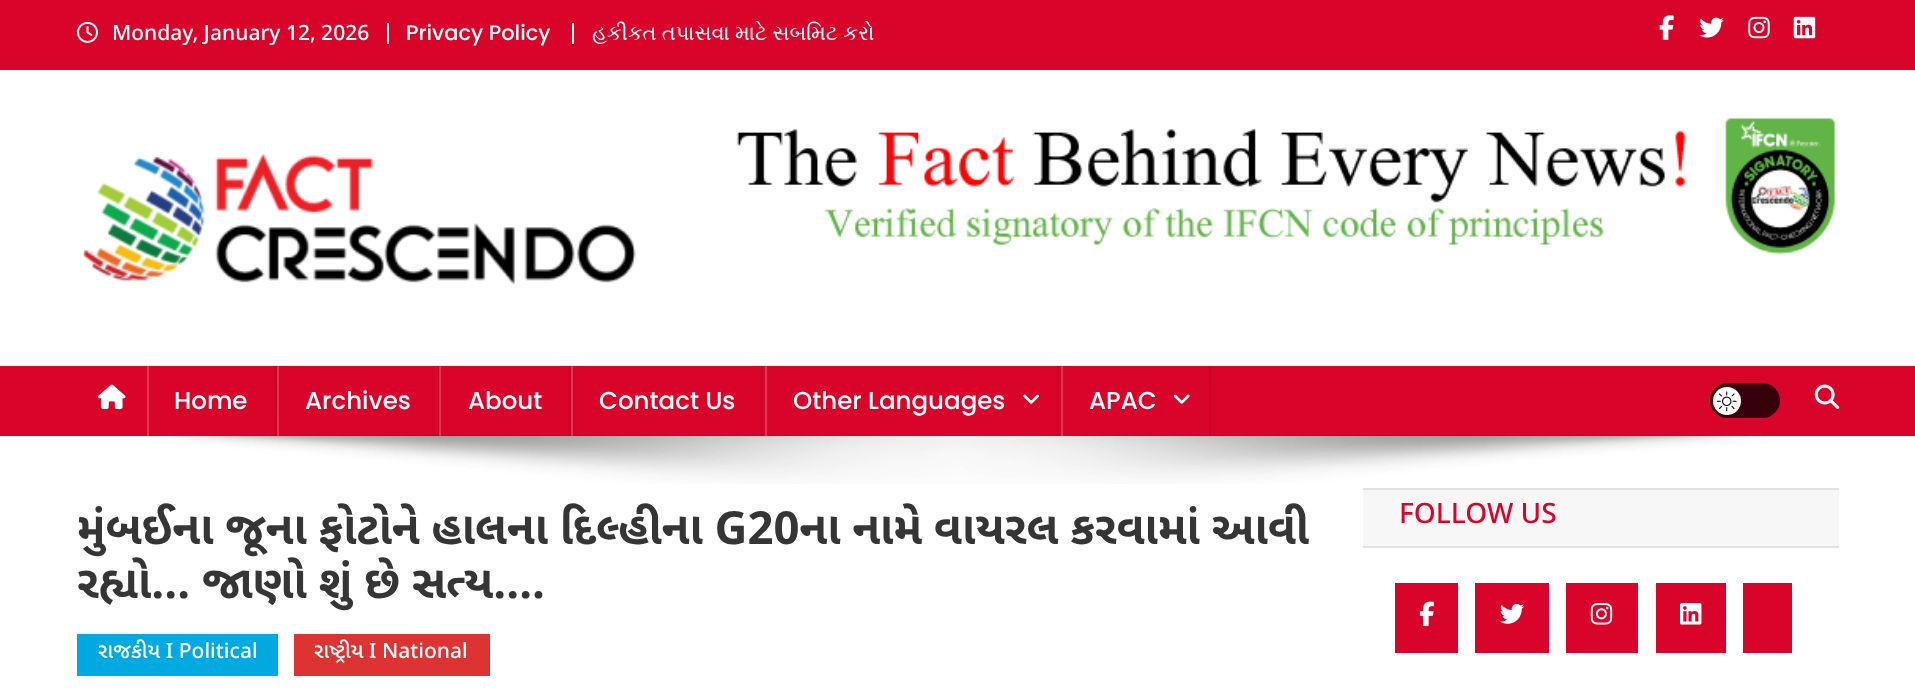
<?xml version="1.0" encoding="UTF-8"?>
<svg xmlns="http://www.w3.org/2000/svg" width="1915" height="695">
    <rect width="100%" height="100%" fill="#FFFFFF"/>
    <rect x="0" y="0" width="1915" height="70" fill="#D90429"/>
    <image x="77" y="21" width="21" height="22" href="img_01.png"/>
    <text x="112" y="40" font-family="Noto Sans Gujarati" font-size="21" font-weight="500" fill="#FFFFFF">Monday, January 12, 2026</text>
    <rect x="387" y="23" width="2" height="21" fill="#FFFFFF"/>
    <text x="406" y="40" font-family="Poppins" font-size="21" font-weight="500" fill="#FFFFFF">Privacy Policy</text>
    <rect x="572" y="23" width="2" height="21" fill="#FFFFFF"/>
    <text x="592" y="40" font-family="FreeSerif" font-size="21" fill="#FFFFFF">હકીકત તપાસવા માટે સબમિટ કરો</text>
    <image x="1659" y="15" width="15" height="25" href="img_02.png"/>
    <image x="1699" y="17" width="25" height="21" href="img_03.png"/>
    <image x="1748" y="16" width="22" height="23" href="img_04.png"/>
    <image x="1793" y="16" width="23" height="23" href="img_05.png"/>
    <image x="83" y="153" width="553" height="132" href="img_06.png"/>
    <image x="736" y="118" width="1099" height="137" href="img_07.png"/>
    <rect x="0" y="366" width="1915" height="70" fill="#D90429"/>
    <image x="98" y="384" width="28" height="26" href="img_08.png"/>
    <image x="149" y="435" width="1618" height="49" href="img_13.png"/>
    <rect x="275" y="366" width="2" height="70" fill="#000000" fill-opacity="0.08"/>
    <rect x="147" y="366" width="2" height="70" fill="#E13654"/>
    <text x="174" y="409" font-family="Poppins" font-size="24.5" font-weight="500" fill="#FFFFFF">Home</text>
    <rect x="438" y="366" width="2" height="70" fill="#000000" fill-opacity="0.08"/>
    <rect x="277" y="366" width="2" height="70" fill="#FFFFFF" fill-opacity="0.2"/>
    <text x="305" y="409" font-family="Poppins" font-size="24.5" font-weight="500" fill="#FFFFFF">Archives</text>
    <rect x="569" y="366" width="2" height="70" fill="#000000" fill-opacity="0.08"/>
    <rect x="439" y="366" width="2" height="70" fill="#FFFFFF" fill-opacity="0.2"/>
    <text x="468" y="409" font-family="Poppins" font-size="24.5" font-weight="500" fill="#FFFFFF">About</text>
    <rect x="761" y="366" width="2" height="70" fill="#000000" fill-opacity="0.08"/>
    <rect x="571" y="366" width="2" height="70" fill="#FFFFFF" fill-opacity="0.2"/>
    <text x="599" y="409" font-family="Poppins" font-size="24.5" font-weight="500" fill="#FFFFFF">Contact Us</text>
    <rect x="1057" y="366" width="2" height="70" fill="#000000" fill-opacity="0.08"/>
    <rect x="765" y="366" width="2" height="70" fill="#FFFFFF" fill-opacity="0.2"/>
    <text x="793" y="409" font-family="Poppins" font-size="24.5" font-weight="500" fill="#FFFFFF">Other Languages</text>
    <image x="1023" y="394" width="16" height="10" href="img_09.png"/>
    <rect x="1209" y="366" width="2" height="70" fill="#000000" fill-opacity="0.08"/>
    <rect x="1061" y="366" width="2" height="70" fill="#FFFFFF" fill-opacity="0.2"/>
    <text x="1089" y="409" font-family="Poppins" font-size="24.5" font-weight="500" fill="#FFFFFF">APAC</text>
    <image x="1173" y="394" width="17" height="10" href="img_10.png"/>
    <rect x="1710" y="383" width="70" height="35" rx="17.5" fill="#36010A"/>
    <circle cx="1727" cy="401" r="14" fill="#FFFFFF"/>
    <image x="1717" y="391" width="20" height="20" href="img_11.png"/>
    <image x="1814" y="384" width="26" height="25" href="img_12.png"/>
    <text font-family="Noto Sans Gujarati" font-size="45.5" font-weight="700" fill="#353535">
        <tspan x="77" y="544">મુંબઈના જૂના ફોટોને હાલના દિલ્હીના G20ના નામે વાયરલ કરવામાં આવી</tspan>
        <tspan x="77" y="598">રહ્યો… જાણો શું છે સત્ય….</tspan>
    </text>
    <rect x="77" y="634" width="201" height="42" fill="#00A9E0"/>
    <text x="98" y="658" font-family="Noto Sans Gujarati" font-size="21" font-weight="500" fill="#FFFFFF">રાજકીય I Political</text>
    <rect x="294" y="634" width="196" height="42" fill="#DD3333"/>
    <text x="314" y="658" font-family="Noto Sans Gujarati" font-size="21" font-weight="500" fill="#FFFFFF">રાષ્ટ્રીય I National</text>
    <rect x="1363" y="490" width="476" height="56" fill="#F7F7F7"/>
    <rect x="1363" y="488" width="476" height="2" fill="#E1E1E1"/>
    <rect x="1363" y="546" width="476" height="2" fill="#E1E1E1"/>
    <text x="1399" y="523" font-family="Noto Sans Gujarati" font-size="28" font-weight="500" fill="#D90429">FOLLOW US</text>
    <rect x="1395" y="583" width="63" height="70" fill="#D90429"/>
    <image x="1419" y="601" width="15" height="26" href="img_14.png"/>
    <rect x="1475" y="583" width="74" height="70" fill="#D90429"/>
    <image x="1500" y="603" width="25" height="21" href="img_15.png"/>
    <rect x="1566" y="583" width="72" height="70" fill="#D90429"/>
    <image x="1590" y="603" width="23" height="22" href="img_16.png"/>
    <rect x="1656" y="583" width="70" height="70" fill="#D90429"/>
    <image x="1680" y="603" width="22" height="22" href="img_17.png"/>
    <rect x="1743" y="583" width="49" height="70" fill="#D90429"/>
</svg>
